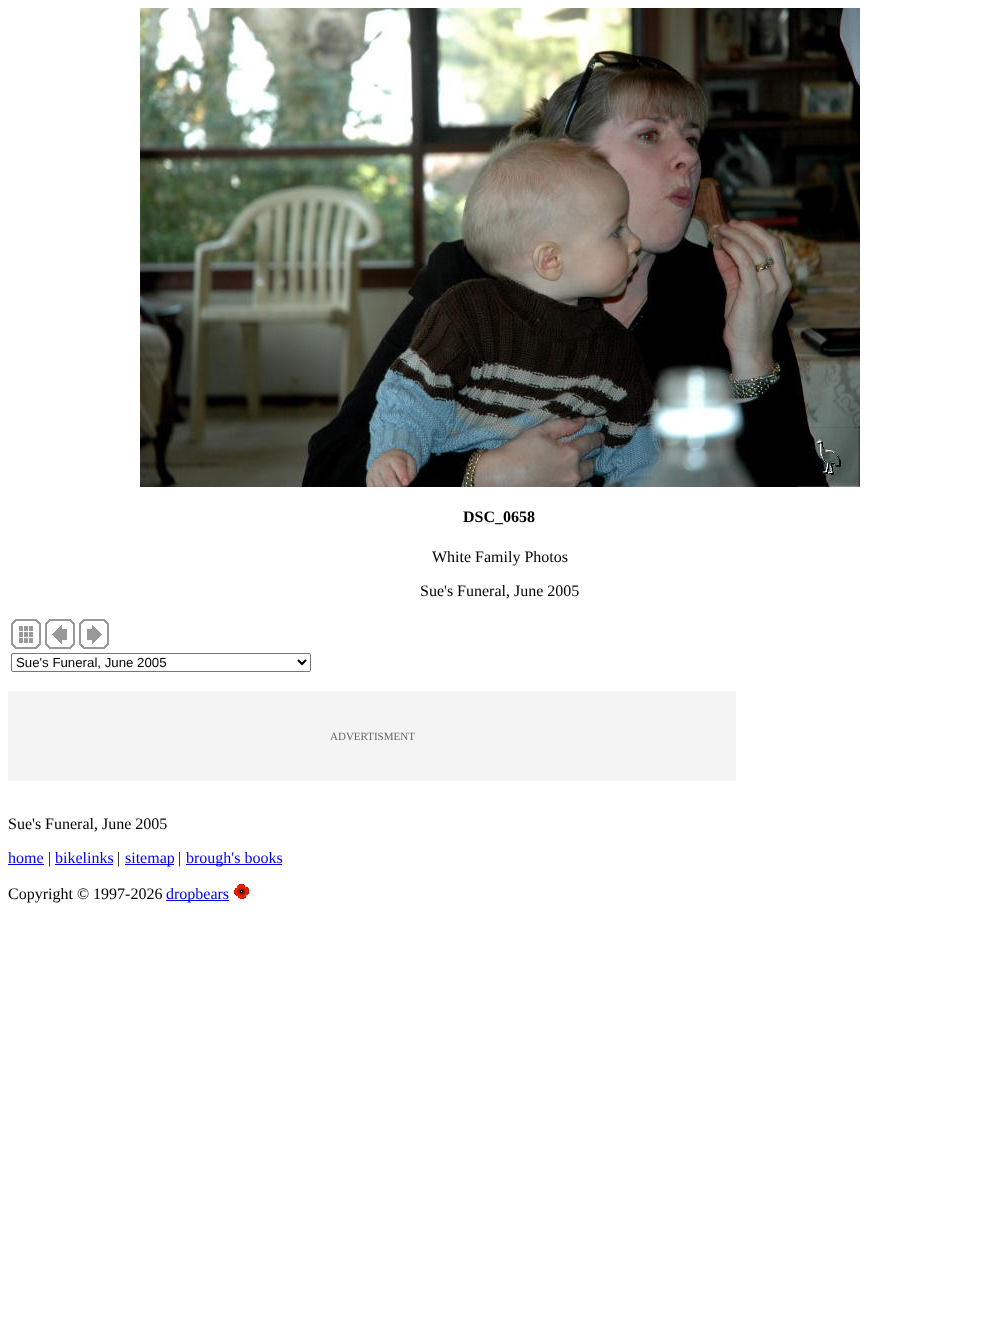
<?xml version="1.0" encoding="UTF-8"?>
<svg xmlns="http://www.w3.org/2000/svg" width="999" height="1340">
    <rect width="100%" height="100%" fill="#FFFFFF"/>
    <image x="140" y="8" width="720" height="479" href="img_01.png"/>
    <text x="463" y="522" font-family="Liberation Serif" font-size="16" font-weight="700" fill="#000000">DSC_0658</text>
    <text x="432" y="562" font-family="Liberation Serif" font-size="16" fill="#000000">White Family Photos</text>
    <text x="420" y="596" font-family="Liberation Serif" font-size="16" fill="#000000">Sue's Funeral, June 2005</text>
    <image x="11" y="619" width="30" height="30" href="img_02.png"/>
    <image x="45" y="619" width="30" height="30" href="img_03.png"/>
    <image x="79" y="619" width="30" height="30" href="img_04.png"/>
    <rect x="11.5" y="653.5" width="299" height="18" rx="1.5" fill="none" stroke="#767676"/>
    <path d="M 298 660 L 302 664 L 306 660" fill="none" stroke="#000000" stroke-width="2"/>
    <text x="16" y="667" font-family="Liberation Sans" font-size="13.25" fill="#000000">Sue's Funeral, June 2005</text>
    <rect x="8" y="691" width="728" height="90" fill="#F4F4F4"/>
    <text x="330" y="740" font-family="Liberation Serif" font-size="11" fill="#666666">ADVERTISMENT</text>
    <text x="8" y="829" font-family="Liberation Serif" font-size="16" fill="#000000">Sue's Funeral, June 2005</text>
    <text x="8" y="863" font-family="Liberation Serif" font-size="16" fill="#0000EE">home</text>
    <rect x="8" y="864" width="36" height="1" fill="#0000EE"/>
    <text x="48" y="863" font-family="Liberation Serif" font-size="16" fill="#000000">|</text>
    <text x="55" y="863" font-family="Liberation Serif" font-size="16" fill="#0000EE">bikelinks</text>
    <rect x="55" y="864" width="58" height="1" fill="#0000EE"/>
    <text x="117" y="863" font-family="Liberation Serif" font-size="16" fill="#000000">|</text>
    <rect x="125" y="864" width="49" height="1" fill="#0000EE"/>
    <text x="125" y="863" font-family="Liberation Serif" font-size="16" fill="#0000EE">sitemap</text>
    <text x="178" y="863" font-family="Liberation Serif" font-size="16" fill="#000000">|</text>
    <rect x="186" y="864" width="96" height="1" fill="#0000EE"/>
    <text x="186" y="863" font-family="Liberation Serif" font-size="16" fill="#0000EE">brough's books</text>
    <text x="8" y="899" font-family="Liberation Serif" font-size="16" fill="#000000">Copyright © 1997-2026</text>
    <rect x="166" y="900" width="63" height="1" fill="#0000EE"/>
    <text x="166" y="899" font-family="Liberation Serif" font-size="16" fill="#0000EE">dropbears</text>
    <image x="234" y="883" width="15" height="16" href="img_05.png"/>
</svg>
